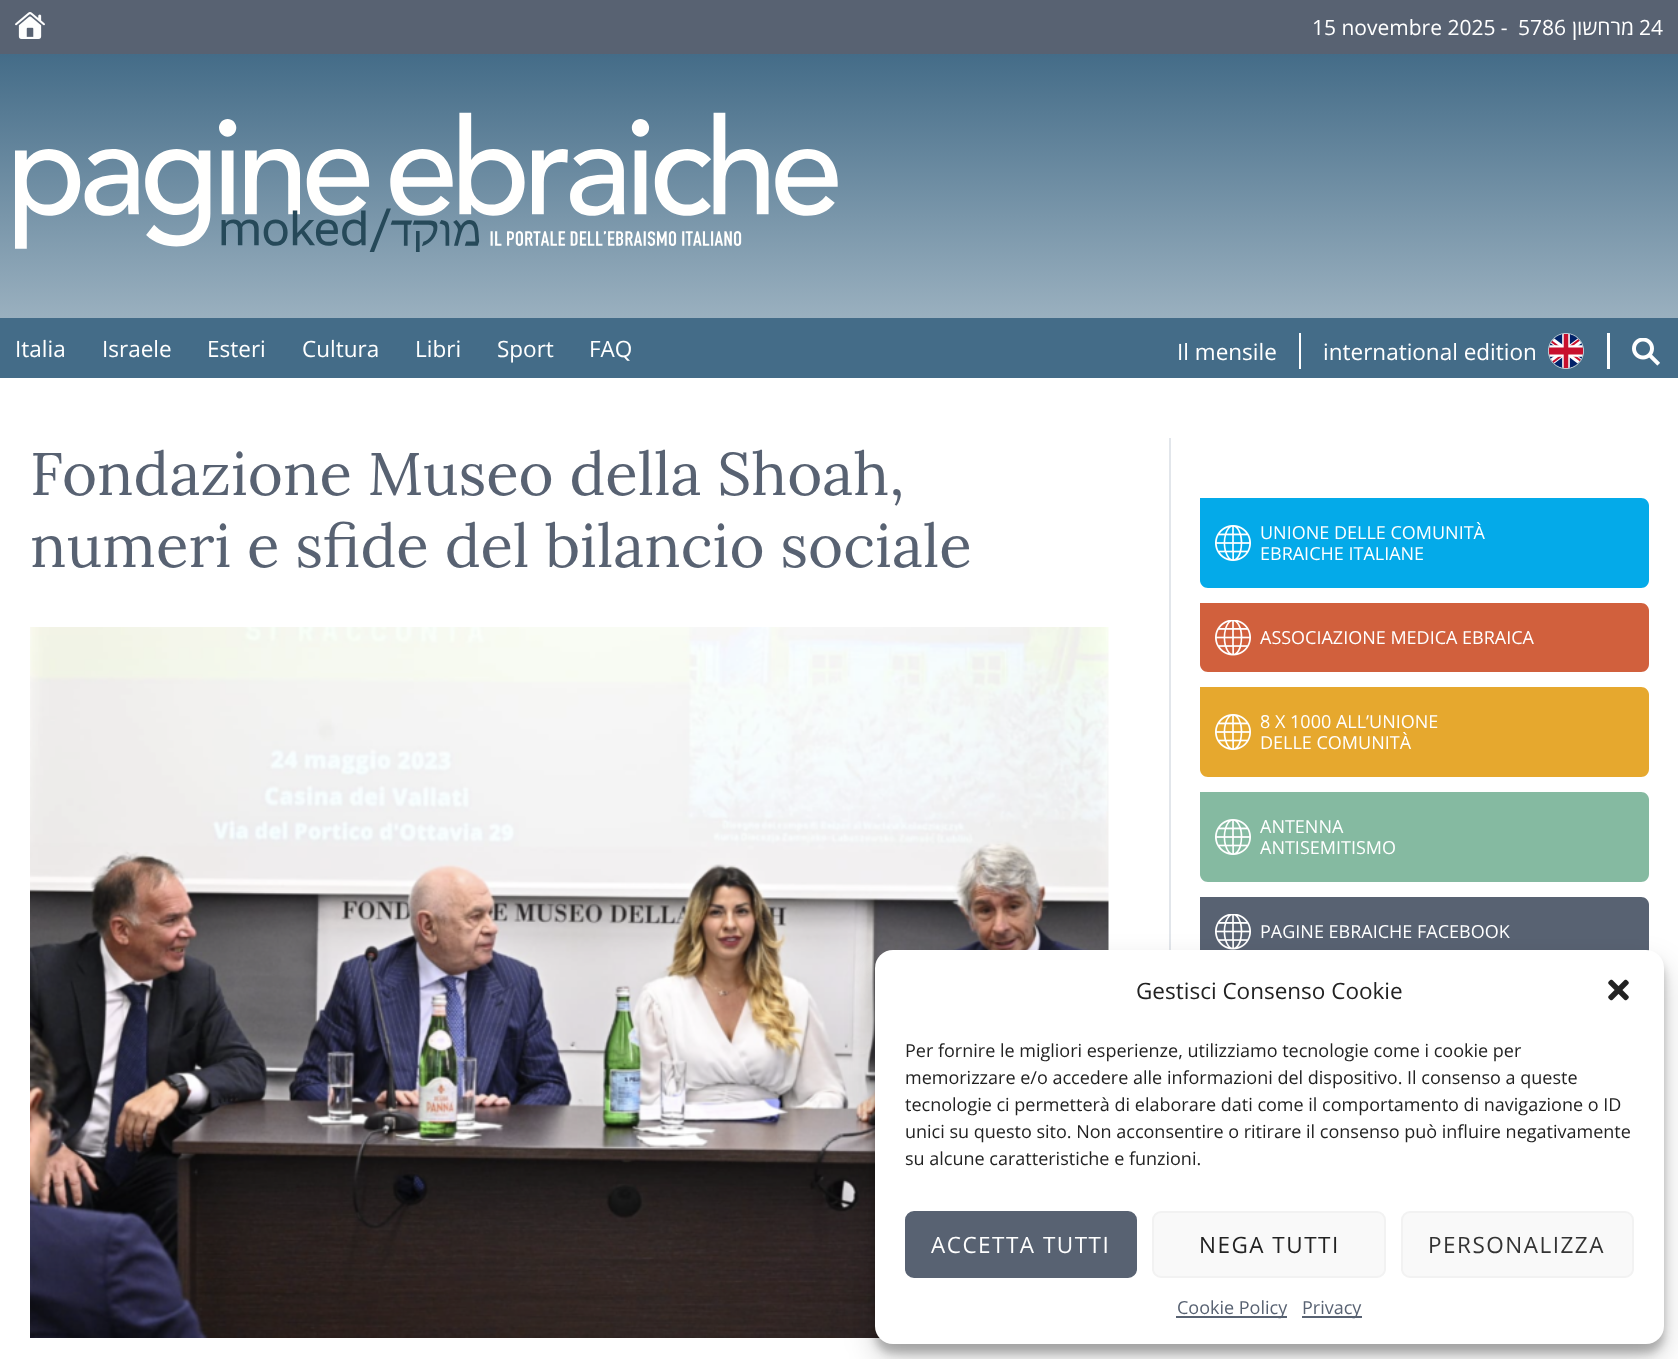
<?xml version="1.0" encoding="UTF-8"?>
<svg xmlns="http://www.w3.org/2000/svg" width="1678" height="1359">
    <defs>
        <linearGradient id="g1" gradientUnits="userSpaceOnUse" x1="839" y1="318" x2="839" y2="54"><stop offset="0" stop-color="#9AB0BF"/><stop offset="1" stop-color="#446C88"/></linearGradient>
        <filter id="blur1" x="-50%" y="-200%" width="200%" height="500%"><feGaussianBlur stdDeviation="4.5"/></filter>
        <filter id="blur2" x="-50%" y="-200%" width="200%" height="500%"><feGaussianBlur stdDeviation="15"/></filter>
    </defs>
    <rect width="100%" height="100%" fill="#FFFFFF"/>
    <rect x="0" y="0" width="1678" height="54" fill="#586272"/>
    <image x="15" y="12" width="30" height="27" href="img_01.png"/>
    <text x="1312" y="35" font-family="Open Sans" font-size="21" fill="#FFFFFF">15 novembre 2025 -</text>
    <text x="1518" y="35" font-family="Open Sans" font-size="21" fill="#FFFFFF">5786</text>
    <text x="1634" y="35" font-family="Open Sans" font-size="21" direction="rtl" fill="#FFFFFF">מרחשון</text>
    <text x="1639" y="35" font-family="Open Sans" font-size="21" fill="#FFFFFF">24</text>
    <rect x="0" y="54" width="1678" height="264" fill="url(#g1)"/>
    <image x="15" y="112" width="823" height="140" href="img_02.png"/>
    <rect x="0" y="318" width="1678" height="60" fill="#446C88"/>
    <text x="15" y="357" font-family="Open Sans" font-size="22.5" fill="#FFFFFF">Italia</text>
    <text x="102" y="357" font-family="Open Sans" font-size="22.5" fill="#FFFFFF">Israele</text>
    <text x="207" y="357" font-family="Open Sans" font-size="22.5" fill="#FFFFFF">Esteri</text>
    <text x="302" y="357" font-family="Open Sans" font-size="22.5" fill="#FFFFFF">Cultura</text>
    <text x="415" y="357" font-family="Open Sans" font-size="22.5" fill="#FFFFFF">Libri</text>
    <text x="497" y="357" font-family="Open Sans" font-size="22.5" fill="#FFFFFF">Sport</text>
    <text x="589" y="357" font-family="Open Sans" font-size="22.5" fill="#FFFFFF">FAQ</text>
    <rect x="1299" y="333" width="2" height="36" fill="#FFFFFF"/>
    <text x="1177" y="360" font-family="Open Sans" font-size="22.5" fill="#FFFFFF">Il mensile</text>
    <text x="1323" y="360" font-family="Open Sans" font-size="22.5" fill="#FFFFFF">international edition</text>
    <image x="1548" y="333" width="36" height="36" href="img_03.png"/>
    <rect x="1607" y="333" width="3" height="36" fill="#FFFFFF"/>
    <image x="1632" y="338" width="28" height="28" href="img_04.png"/>
    <text font-family="Lora" font-size="60" fill="#586272">
        <tspan x="30" y="495">Fondazione Museo della Shoah,</tspan>
        <tspan x="30" y="567">numeri e sfide del bilancio sociale</tspan>
    </text>
    <image x="30" y="627" width="1079" height="711" href="img_05.png"/>
    <rect x="1169" y="438" width="2" height="512" fill="#E2E6EB"/>
    <path d="M 1200 498 H 1641 C 1645.5 498 1649 501.5 1649 506 V 580 C 1649 584.5 1645.5 588 1641 588 H 1208 C 1203.5 588 1200 584.5 1200 580 Z" fill="#04AAE9"/>
    <image x="1215" y="525" width="36" height="36" href="img_06.png"/>
    <text font-family="Open Sans" font-size="18" fill="#FFFFFF">
        <tspan x="1260" y="539">UNIONE DELLE COMUNITÀ</tspan>
        <tspan x="1260" y="560">EBRAICHE ITALIANE</tspan>
    </text>
    <path d="M 1200 603 H 1641 C 1645.5 603 1649 606.5 1649 611 V 664 C 1649 668.5 1645.5 672 1641 672 H 1208 C 1203.5 672 1200 668.5 1200 664 Z" fill="#D1603D"/>
    <image x="1215" y="620" width="36" height="36" href="img_07.png"/>
    <text x="1260" y="644" font-family="Open Sans" font-size="18" fill="#FFFFFF">ASSOCIAZIONE MEDICA EBRAICA</text>
    <path d="M 1200 687 H 1641 C 1645.5 687 1649 690.5 1649 695 V 769 C 1649 773.5 1645.5 777 1641 777 H 1208 C 1203.5 777 1200 773.5 1200 769 Z" fill="#E6A82E"/>
    <image x="1215" y="714" width="36" height="36" href="img_08.png"/>
    <text font-family="Open Sans" font-size="18" fill="#FFFFFF">
        <tspan x="1260" y="728">8 X 1000 ALL’UNIONE</tspan>
        <tspan x="1260" y="749">DELLE COMUNITÀ</tspan>
    </text>
    <path d="M 1200 792 H 1641 C 1645.5 792 1649 795.5 1649 800 V 874 C 1649 878.5 1645.5 882 1641 882 H 1208 C 1203.5 882 1200 878.5 1200 874 Z" fill="#85BAA1"/>
    <image x="1215" y="819" width="36" height="36" href="img_09.png"/>
    <text font-family="Open Sans" font-size="18" fill="#FFFFFF">
        <tspan x="1260" y="833">ANTENNA</tspan>
        <tspan x="1260" y="854">ANTISEMITISMO</tspan>
    </text>
    <path d="M 1200 897 H 1641 C 1645.5 897 1649 900.5 1649 905 V 958 C 1649 962.5 1645.5 966 1641 966 H 1208 C 1203.5 966 1200 962.5 1200 958 Z" fill="#586272"/>
    <image x="1215" y="914" width="36" height="36" href="img_10.png"/>
    <text x="1260" y="938" font-family="Open Sans" font-size="18" fill="#FFFFFF">PAGINE EBRAICHE FACEBOOK</text>
    <rect x="875" y="959" width="789" height="394" rx="18" fill="#000000" fill-opacity="0.23" filter="url(#blur1)"/>
    <rect x="875" y="965" width="789" height="394" rx="18" fill="#000000" fill-opacity="0.19" filter="url(#blur2)"/>
    <rect x="875" y="950" width="789" height="394" rx="18" fill="#FFFFFF"/>
    <text x="1136" y="999" font-family="Open Sans" font-size="22.5" fill="#222222">Gestisci Consenso Cookie</text>
    <image x="1608" y="979" width="21" height="22" href="img_11.png"/>
    <text font-family="Open Sans" font-size="18" fill="#222222">
        <tspan x="905" y="1057">Per fornire le migliori esperienze, utilizziamo tecnologie come i cookie per</tspan>
        <tspan x="905" y="1084">memorizzare e/o accedere alle informazioni del dispositivo. Il consenso a queste</tspan>
        <tspan x="905" y="1111">tecnologie ci permetterà di elaborare dati come il comportamento di navigazione o ID</tspan>
        <tspan x="905" y="1138">unici su questo sito. Non acconsentire o ritirare il consenso può influire negativamente</tspan>
        <tspan x="905" y="1165">su alcune caratteristiche e funzioni.</tspan>
    </text>
    <rect x="906" y="1212" width="230" height="65" rx="8" fill="#586272" stroke="#586272" stroke-width="2"/>
    <text x="931" y="1253" font-family="Open Sans" font-size="22.5" letter-spacing="1.5" fill="#FFFFFF">ACCETTA TUTTI</text>
    <rect x="1153" y="1212" width="232" height="65" rx="8" fill="#F9F9F9" stroke="#F2F2F2" stroke-width="2"/>
    <text x="1199" y="1253" font-family="Open Sans" font-size="22.5" letter-spacing="1.5" fill="#222222">NEGA TUTTI</text>
    <rect x="1402" y="1212" width="231" height="65" rx="8" fill="#F9F9F9" stroke="#F2F2F2" stroke-width="2"/>
    <text x="1428" y="1253" font-family="Open Sans" font-size="22.5" letter-spacing="1.5" fill="#333333">PERSONALIZZA</text>
    <rect x="1176" y="1316" width="111" height="2" fill="#586272"/>
    <text x="1177" y="1314" font-family="Open Sans" font-size="18" fill="#586272">Cookie Policy</text>
    <rect x="1302" y="1316" width="60" height="2" fill="#586272"/>
    <text x="1302" y="1314" font-family="Open Sans" font-size="18" fill="#586272">Privacy</text>
</svg>
